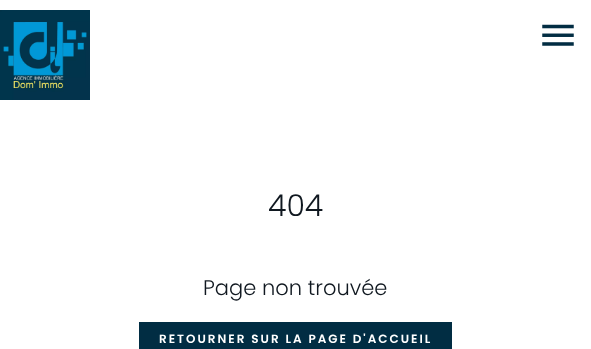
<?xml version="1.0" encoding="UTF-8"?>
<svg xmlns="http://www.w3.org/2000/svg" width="591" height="349">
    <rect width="100%" height="100%" fill="#FFFFFF"/>
    <image x="0" y="10" width="90" height="90" href="img_01.png"/>
    <image x="542" y="24" width="32" height="22" href="img_02.png"/>
    <text x="268" y="216" font-family="Poppins" font-size="30" font-weight="300" fill="#101820">404</text>
    <text x="203" y="295" font-family="Poppins" font-size="21" font-weight="300" fill="#101820">Page non trouvée</text>
    <rect x="139" y="322" width="313" height="27" fill="#012D43"/>
    <text x="159" y="343" font-family="Poppins" font-size="12" font-weight="600" letter-spacing="2" fill="#FFFFFF">RETOURNER SUR LA PAGE D'ACCUEIL</text>
</svg>
